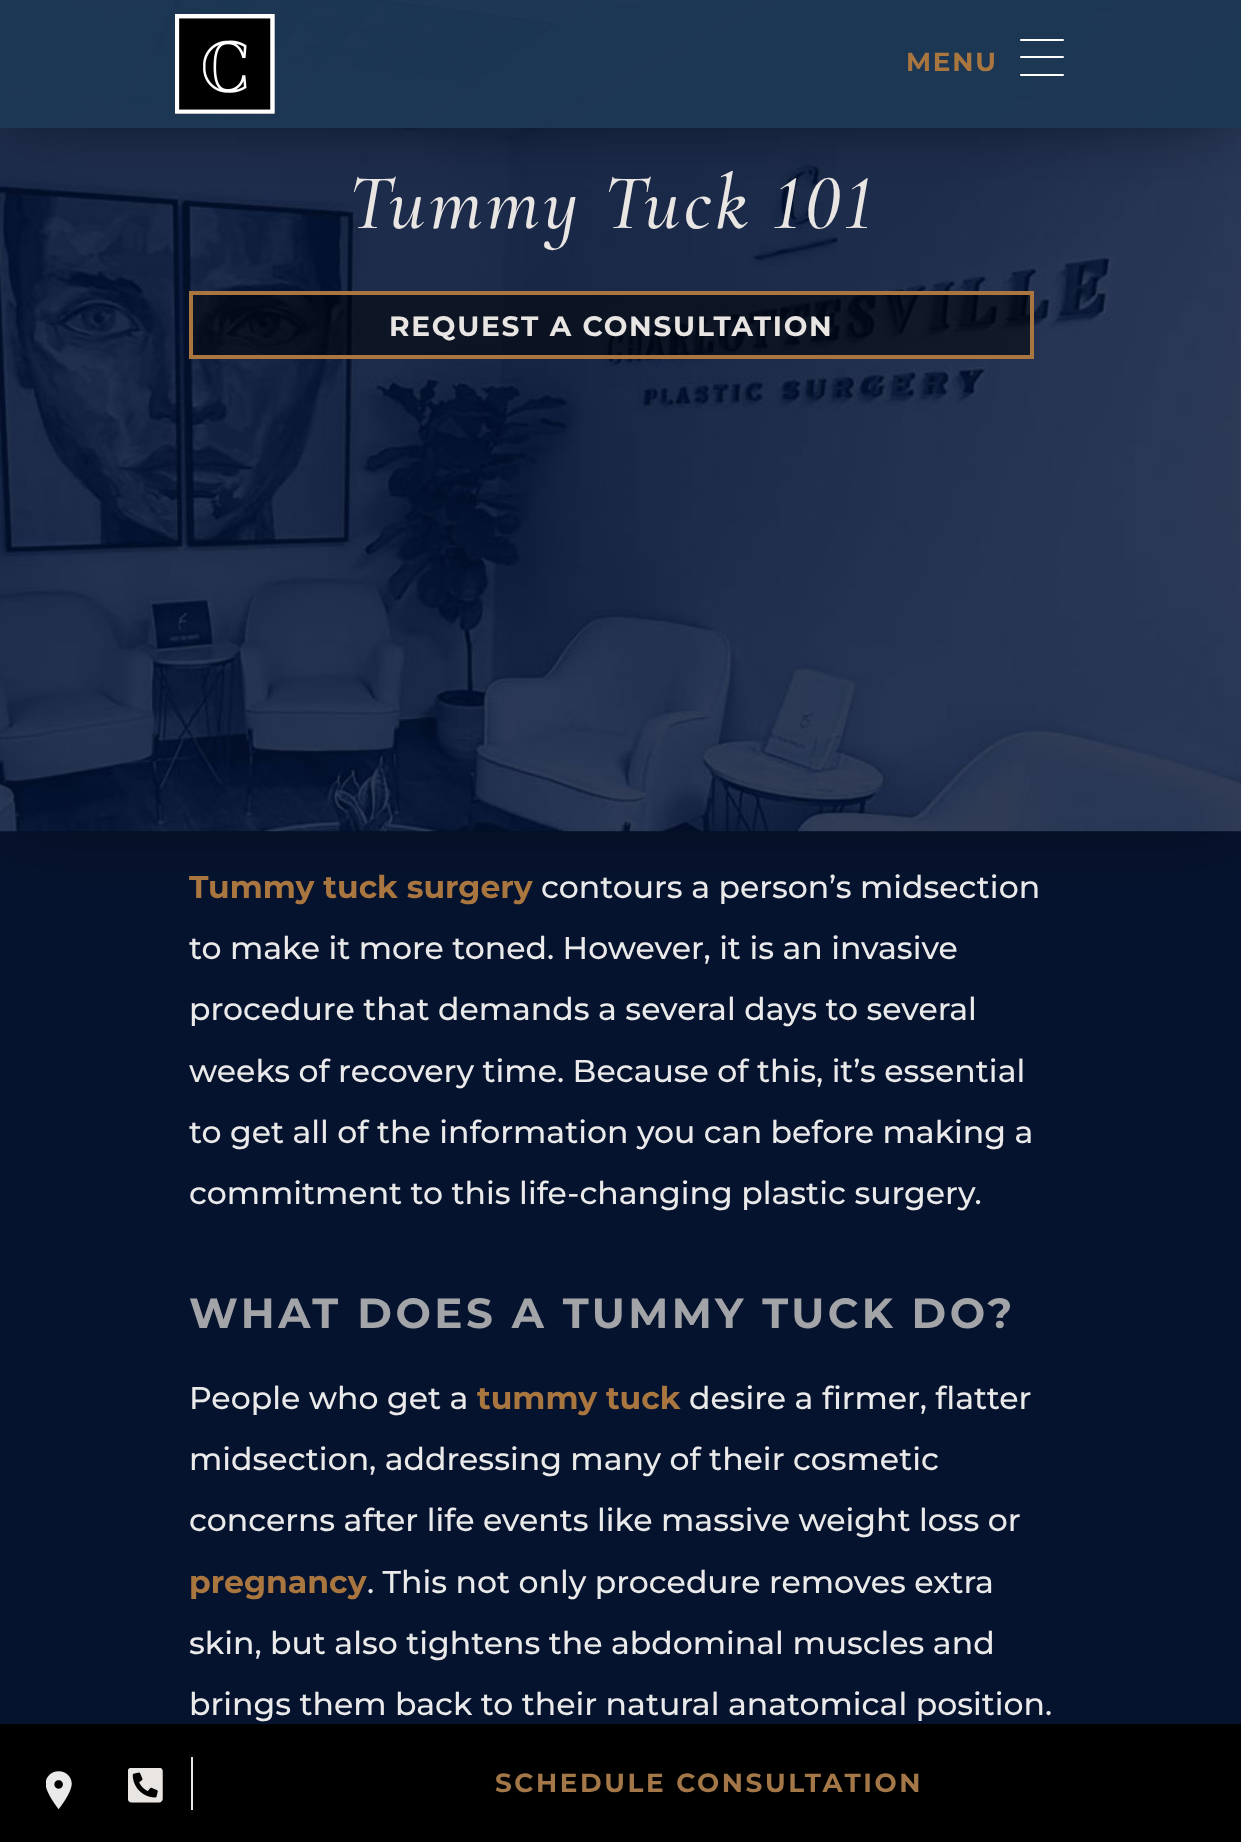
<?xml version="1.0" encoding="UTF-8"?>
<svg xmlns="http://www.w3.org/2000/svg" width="1241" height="1842">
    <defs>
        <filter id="blur1" x="-50%" y="-200%" width="200%" height="500%"><feGaussianBlur stdDeviation="34"/></filter>
        <clipPath id="clip1"><path d="M 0 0 H 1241 V 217 H 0 Z M 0 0 H 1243 V 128 H 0 Z" clip-rule="evenodd"/></clipPath>
    </defs>
    <rect width="100%" height="100%" fill="#06132E"/>
    <rect x="14" y="14" width="1215" height="803" fill="#000000" fill-opacity="0.59" filter="url(#blur1)"/>
    <image x="0" y="0" width="1241" height="832" href="img_02.png"/>
    <g clip-path="url(#clip1)">
        <rect x="14" y="14" width="1215" height="100" fill="#000000" fill-opacity="0.59" filter="url(#blur1)"/>
    </g>
    <rect x="0" y="0" width="1241" height="128" fill="#1D3855" fill-opacity="0.9"/>
    <image x="175" y="14" width="100" height="100" href="img_01.png"/>
    <text x="906" y="71" font-family="Montserrat" font-size="26.25" font-weight="700" letter-spacing="1.75" fill="#AA763F">MENU</text>
    <rect x="1020" y="56" width="44" height="2" rx="1" fill="#FFFFFF"/>
    <rect x="1020" y="39" width="44" height="2" rx="1" fill="#FFFFFF"/>
    <rect x="1020" y="74" width="44" height="2" rx="1" fill="#FFFFFF"/>
    <text x="348" y="228" font-family="Cormorant Infant" font-size="78.75" font-weight="500" font-style="italic" letter-spacing="3.5" fill="#E8E5E3">Tummy Tuck 101</text>
    <rect x="191" y="293" width="841" height="64" fill="#000000" fill-opacity="0.5" stroke="#AA763F" stroke-width="4"/>
    <text x="389" y="336" font-family="Montserrat" font-size="28" font-weight="700" letter-spacing="1.75" fill="#E8E5E3">REQUEST A CONSULTATION</text>
    <text x="189" y="898" font-family="Montserrat" font-size="31.5" font-weight="700" fill="#AA763F">Tummy tuck surgery</text>
    <text x="541" y="898" font-family="Montserrat" font-size="31.5" font-weight="500" fill="#EAEAEA">contours a person’s midsection</text>
    <text font-family="Montserrat" font-size="31.5" font-weight="500" fill="#EAEAEA">
        <tspan x="189" y="959">to make it more toned. However, it is an invasive</tspan>
        <tspan x="189" y="1020">procedure that demands a several days to several</tspan>
        <tspan x="189" y="1082">weeks of recovery time. Because of this, it’s essential</tspan>
        <tspan x="189" y="1143">to get all of the information you can before making a</tspan>
        <tspan x="189" y="1204">commitment to this life-changing plastic surgery.</tspan>
    </text>
    <text x="189" y="1328" font-family="Montserrat" font-size="42" font-weight="700" letter-spacing="3.5" fill="#A2A4A7">WHAT DOES A TUMMY TUCK DO?</text>
    <text x="189" y="1409" font-family="Montserrat" font-size="31.5" font-weight="500" fill="#EAEAEA">People who get a</text>
    <text x="477" y="1409" font-family="Montserrat" font-size="31.5" font-weight="700" fill="#AA763F">tummy tuck</text>
    <text x="689" y="1409" font-family="Montserrat" font-size="31.5" font-weight="500" fill="#EAEAEA">desire a firmer, flatter</text>
    <text font-family="Montserrat" font-size="31.5" font-weight="500" fill="#EAEAEA">
        <tspan x="189" y="1470">midsection, addressing many of their cosmetic</tspan>
        <tspan x="189" y="1531">concerns after life events like massive weight loss or</tspan>
    </text>
    <text x="189" y="1593" font-family="Montserrat" font-size="31.5" font-weight="700" fill="#AA763F">pregnancy</text>
    <text x="367" y="1593" font-family="Montserrat" font-size="31.5" font-weight="500" fill="#EAEAEA">. This not only procedure removes extra</text>
    <text font-family="Montserrat" font-size="31.5" font-weight="500" fill="#EAEAEA">
        <tspan x="189" y="1654">skin, but also tightens the abdominal muscles and</tspan>
        <tspan x="189" y="1715">brings them back to their natural anatomical position.</tspan>
    </text>
    <rect x="0" y="1724" width="1241" height="118" fill="#000000"/>
    <image x="46" y="1771" width="26" height="39" href="img_03.png"/>
    <image x="128" y="1768" width="35" height="35" href="img_04.png"/>
    <rect x="191" y="1757" width="2" height="53" fill="#E8E5E3"/>
    <text x="495" y="1792" font-family="Montserrat" font-size="26.25" font-weight="700" letter-spacing="2.6" fill="#A37748">SCHEDULE CONSULTATION</text>
</svg>
